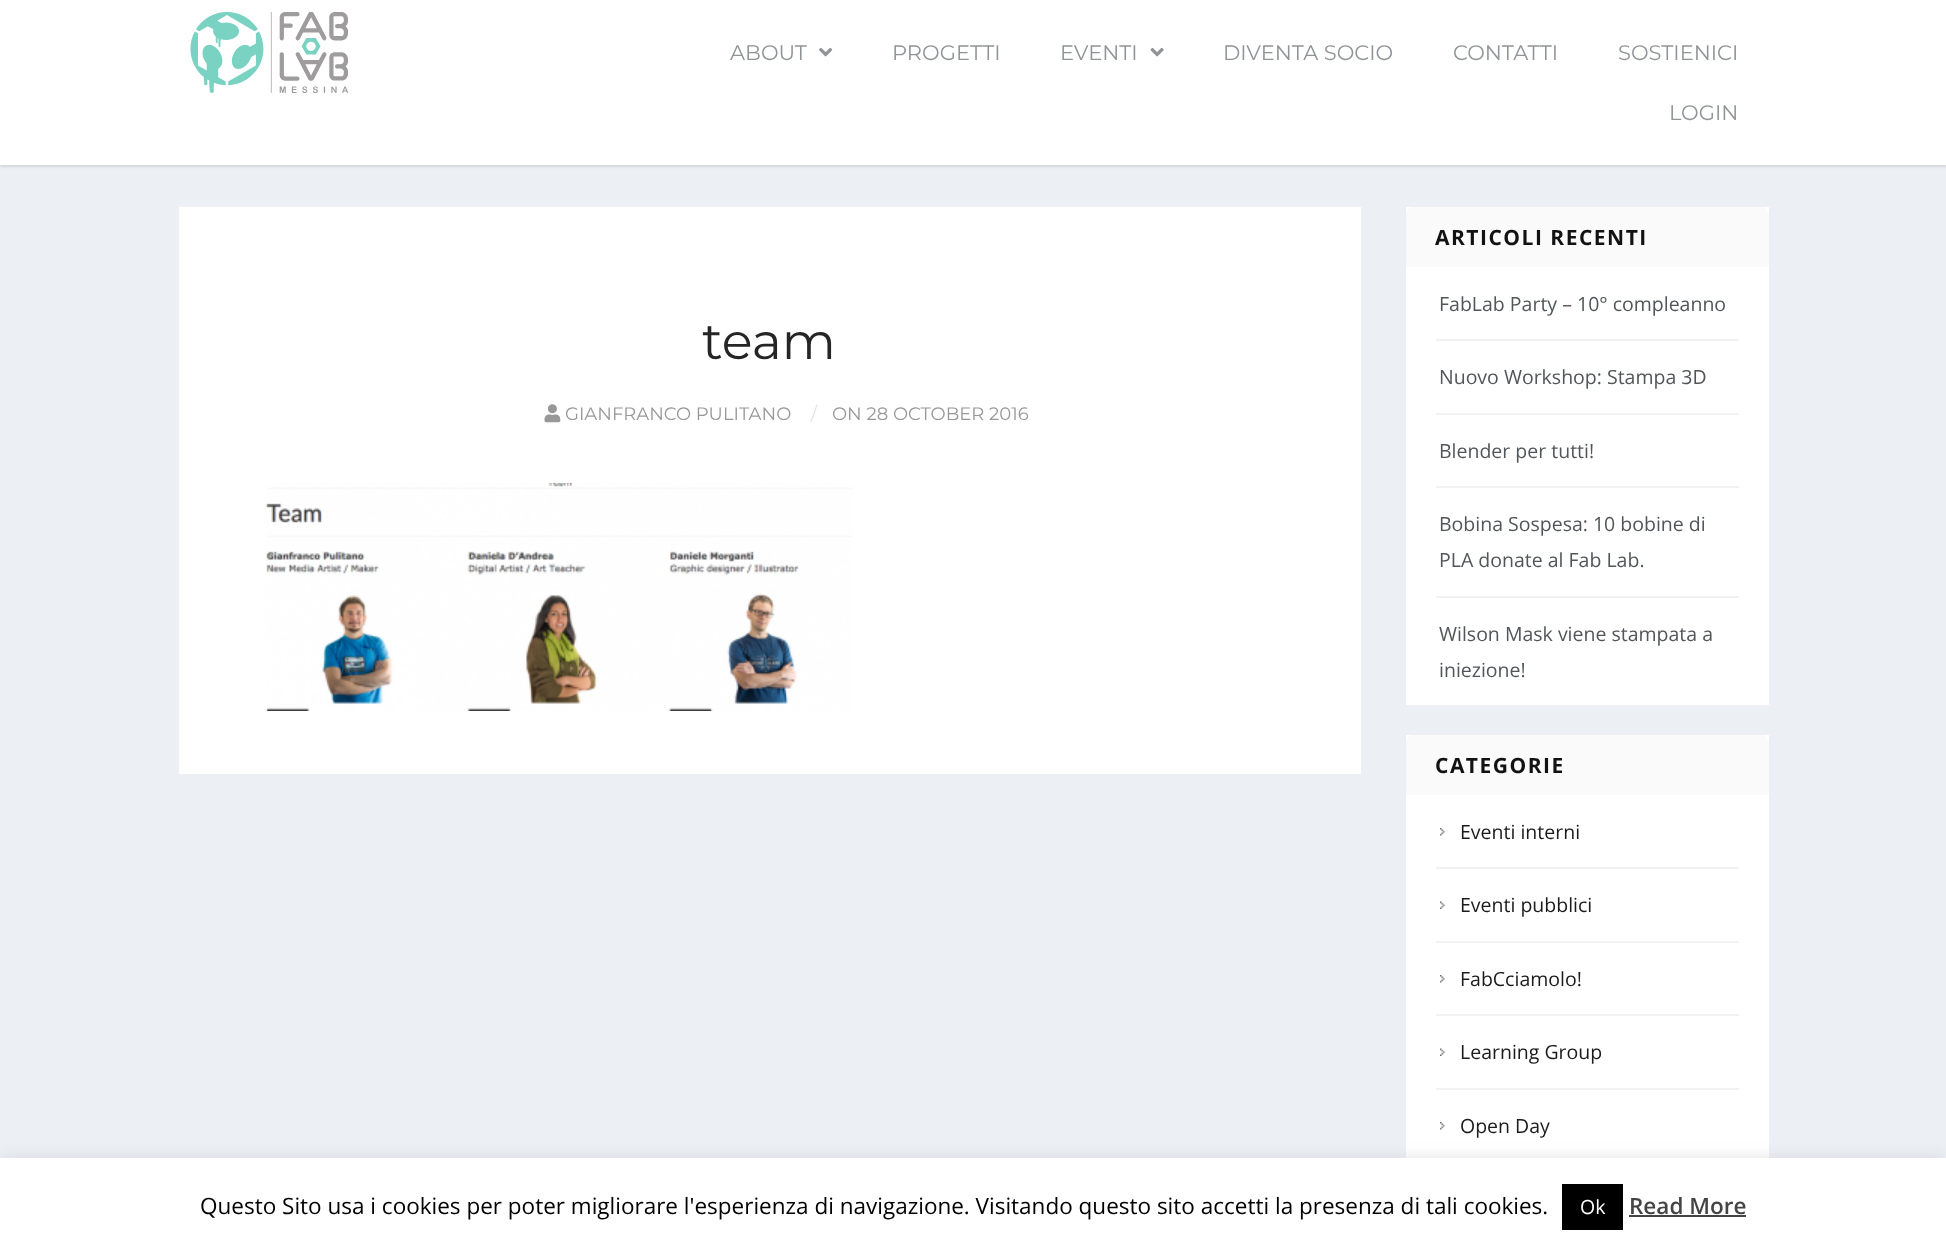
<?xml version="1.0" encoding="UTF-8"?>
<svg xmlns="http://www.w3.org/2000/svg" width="1946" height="1247">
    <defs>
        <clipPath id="clip1"><rect x="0" y="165" width="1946" height="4"/></clipPath>
        <filter id="blur1" x="-50%" y="-200%" width="200%" height="500%"><feGaussianBlur stdDeviation="1"/></filter>
        <filter id="blur2" x="-50%" y="-200%" width="200%" height="500%"><feGaussianBlur stdDeviation="7.5"/></filter>
    </defs>
    <rect width="100%" height="100%" fill="#FFFFFF"/>
    <rect x="0" y="165" width="1946" height="993" fill="#ECEFF4"/>
    <g clip-path="url(#clip1)">
        <rect x="0" y="2" width="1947" height="165" fill="#CCCCCF" fill-opacity="0.7" filter="url(#blur1)"/>
    </g>
    <image x="190" y="12" width="158" height="81" href="img_01.png"/>
    <text x="730" y="60" font-family="Montserrat" font-size="21" fill="#919497">ABOUT</text>
    <image x="819" y="47" width="14" height="10" href="img_02.png"/>
    <text x="892" y="60" font-family="Montserrat" font-size="21" fill="#919497">PROGETTI</text>
    <text x="1060" y="60" font-family="Montserrat" font-size="21" fill="#919497">EVENTI</text>
    <image x="1150" y="47" width="14" height="10" href="img_03.png"/>
    <text x="1223" y="60" font-family="Montserrat" font-size="21" fill="#919497">DIVENTA SOCIO</text>
    <text x="1453" y="60" font-family="Montserrat" font-size="21" fill="#919497">CONTATTI</text>
    <text x="1618" y="60" font-family="Montserrat" font-size="21" fill="#919497">SOSTIENICI</text>
    <text x="1669" y="120" font-family="Montserrat" font-size="21" fill="#919497">LOGIN</text>
    <rect x="179" y="207" width="1182" height="567" fill="#FFFFFF"/>
    <text x="702" y="359" font-family="Montserrat" font-size="51" fill="#252525">team</text>
    <image x="544" y="404" width="17" height="19" href="img_04.png"/>
    <text x="565" y="420" font-family="Montserrat" font-size="18" fill="#989898">GIANFRANCO PULITANO</text>
    <text x="811" y="420" font-family="Montserrat" font-size="18" fill="#E2E2E2">/</text>
    <text x="832" y="420" font-family="Montserrat" font-size="18" fill="#989898">ON 28 OCTOBER 2016</text>
    <image x="265" y="483" width="588" height="228" href="img_05.png"/>
    <rect x="1406" y="207" width="363" height="498" fill="#FFFFFF"/>
    <path d="M 1414 207 H 1761 C 1765.5 207 1769 210.5 1769 215 V 267 H 1406 V 215 C 1406 210.5 1409.5 207 1414 207 Z" fill="#FAFAFA"/>
    <text x="1435" y="245" font-family="Open Sans" font-size="21" font-weight="700" letter-spacing="1.5" fill="#121212">ARTICOLI RECENTI</text>
    <text x="1439" y="311" font-family="Open Sans" font-size="19.5" fill="#52565A">FabLab Party – 10° compleanno</text>
    <rect x="1436" y="339" width="303" height="2" fill="#F2F2F2"/>
    <text x="1439" y="384" font-family="Open Sans" font-size="19.5" fill="#52565A">Nuovo Workshop: Stampa 3D</text>
    <rect x="1436" y="413" width="303" height="2" fill="#F2F2F2"/>
    <text x="1439" y="458" font-family="Open Sans" font-size="19.5" fill="#52565A">Blender per tutti!</text>
    <rect x="1436" y="486" width="303" height="2" fill="#F2F2F2"/>
    <text font-family="Open Sans" font-size="19.5" fill="#52565A">
        <tspan x="1439" y="531">Bobina Sospesa: 10 bobine di</tspan>
        <tspan x="1439" y="567">PLA donate al Fab Lab.</tspan>
    </text>
    <rect x="1436" y="596" width="303" height="2" fill="#F2F2F2"/>
    <text font-family="Open Sans" font-size="19.5" fill="#52565A">
        <tspan x="1439" y="641">Wilson Mask viene stampata a</tspan>
        <tspan x="1439" y="677">iniezione!</tspan>
    </text>
    <rect x="1406" y="735" width="363" height="423" fill="#FFFFFF"/>
    <path d="M 1414 735 H 1761 C 1765.5 735 1769 738.5 1769 743 V 795 H 1406 V 743 C 1406 738.5 1409.5 735 1414 735 Z" fill="#FAFAFA"/>
    <text x="1435" y="773" font-family="Open Sans" font-size="21" font-weight="700" letter-spacing="1.5" fill="#121212">CATEGORIE</text>
    <image x="1440" y="828" width="5" height="8" href="img_06.png"/>
    <text x="1460" y="839" font-family="Open Sans" font-size="19.5" fill="#1B1B1B">Eventi interni</text>
    <rect x="1436" y="867" width="303" height="2" fill="#F2F2F2"/>
    <image x="1440" y="901" width="5" height="8" href="img_07.png"/>
    <text x="1460" y="912" font-family="Open Sans" font-size="19.5" fill="#1B1B1B">Eventi pubblici</text>
    <rect x="1436" y="941" width="303" height="2" fill="#F2F2F2"/>
    <image x="1440" y="975" width="5" height="8" href="img_06.png"/>
    <text x="1460" y="986" font-family="Open Sans" font-size="19.5" fill="#1B1B1B">FabCciamolo!</text>
    <rect x="1436" y="1014" width="303" height="2" fill="#F2F2F2"/>
    <image x="1440" y="1048" width="5" height="8" href="img_07.png"/>
    <text x="1460" y="1059" font-family="Open Sans" font-size="19.5" fill="#1B1B1B">Learning Group</text>
    <rect x="1436" y="1088" width="303" height="2" fill="#F2F2F2"/>
    <image x="1440" y="1122" width="5" height="8" href="img_06.png"/>
    <text x="1460" y="1133" font-family="Open Sans" font-size="19.5" fill="#1B1B1B">Open Day</text>
    <rect x="0" y="1157" width="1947" height="90" fill="#ACABAB" fill-opacity="0.3" filter="url(#blur2)"/>
    <rect x="0" y="1158" width="1946" height="89" fill="#FFFFFF"/>
    <text x="200" y="1214" font-family="Open Sans" font-size="22.5" fill="#000000">Questo Sito usa i cookies per poter migliorare l'esperienza di navigazione. Visitando questo sito accetti la presenza di tali cookies.</text>
    <rect x="1562" y="1184" width="61" height="46" fill="#000000"/>
    <text x="1580" y="1214" font-family="Open Sans" font-size="19.5" fill="#FFFFFF">Ok</text>
    <text x="1629" y="1214" font-family="Open Sans" font-size="22.5" font-weight="600" fill="#444444">Read More</text>
    <rect x="1629" y="1215" width="117" height="2" fill="#444444"/>
</svg>
